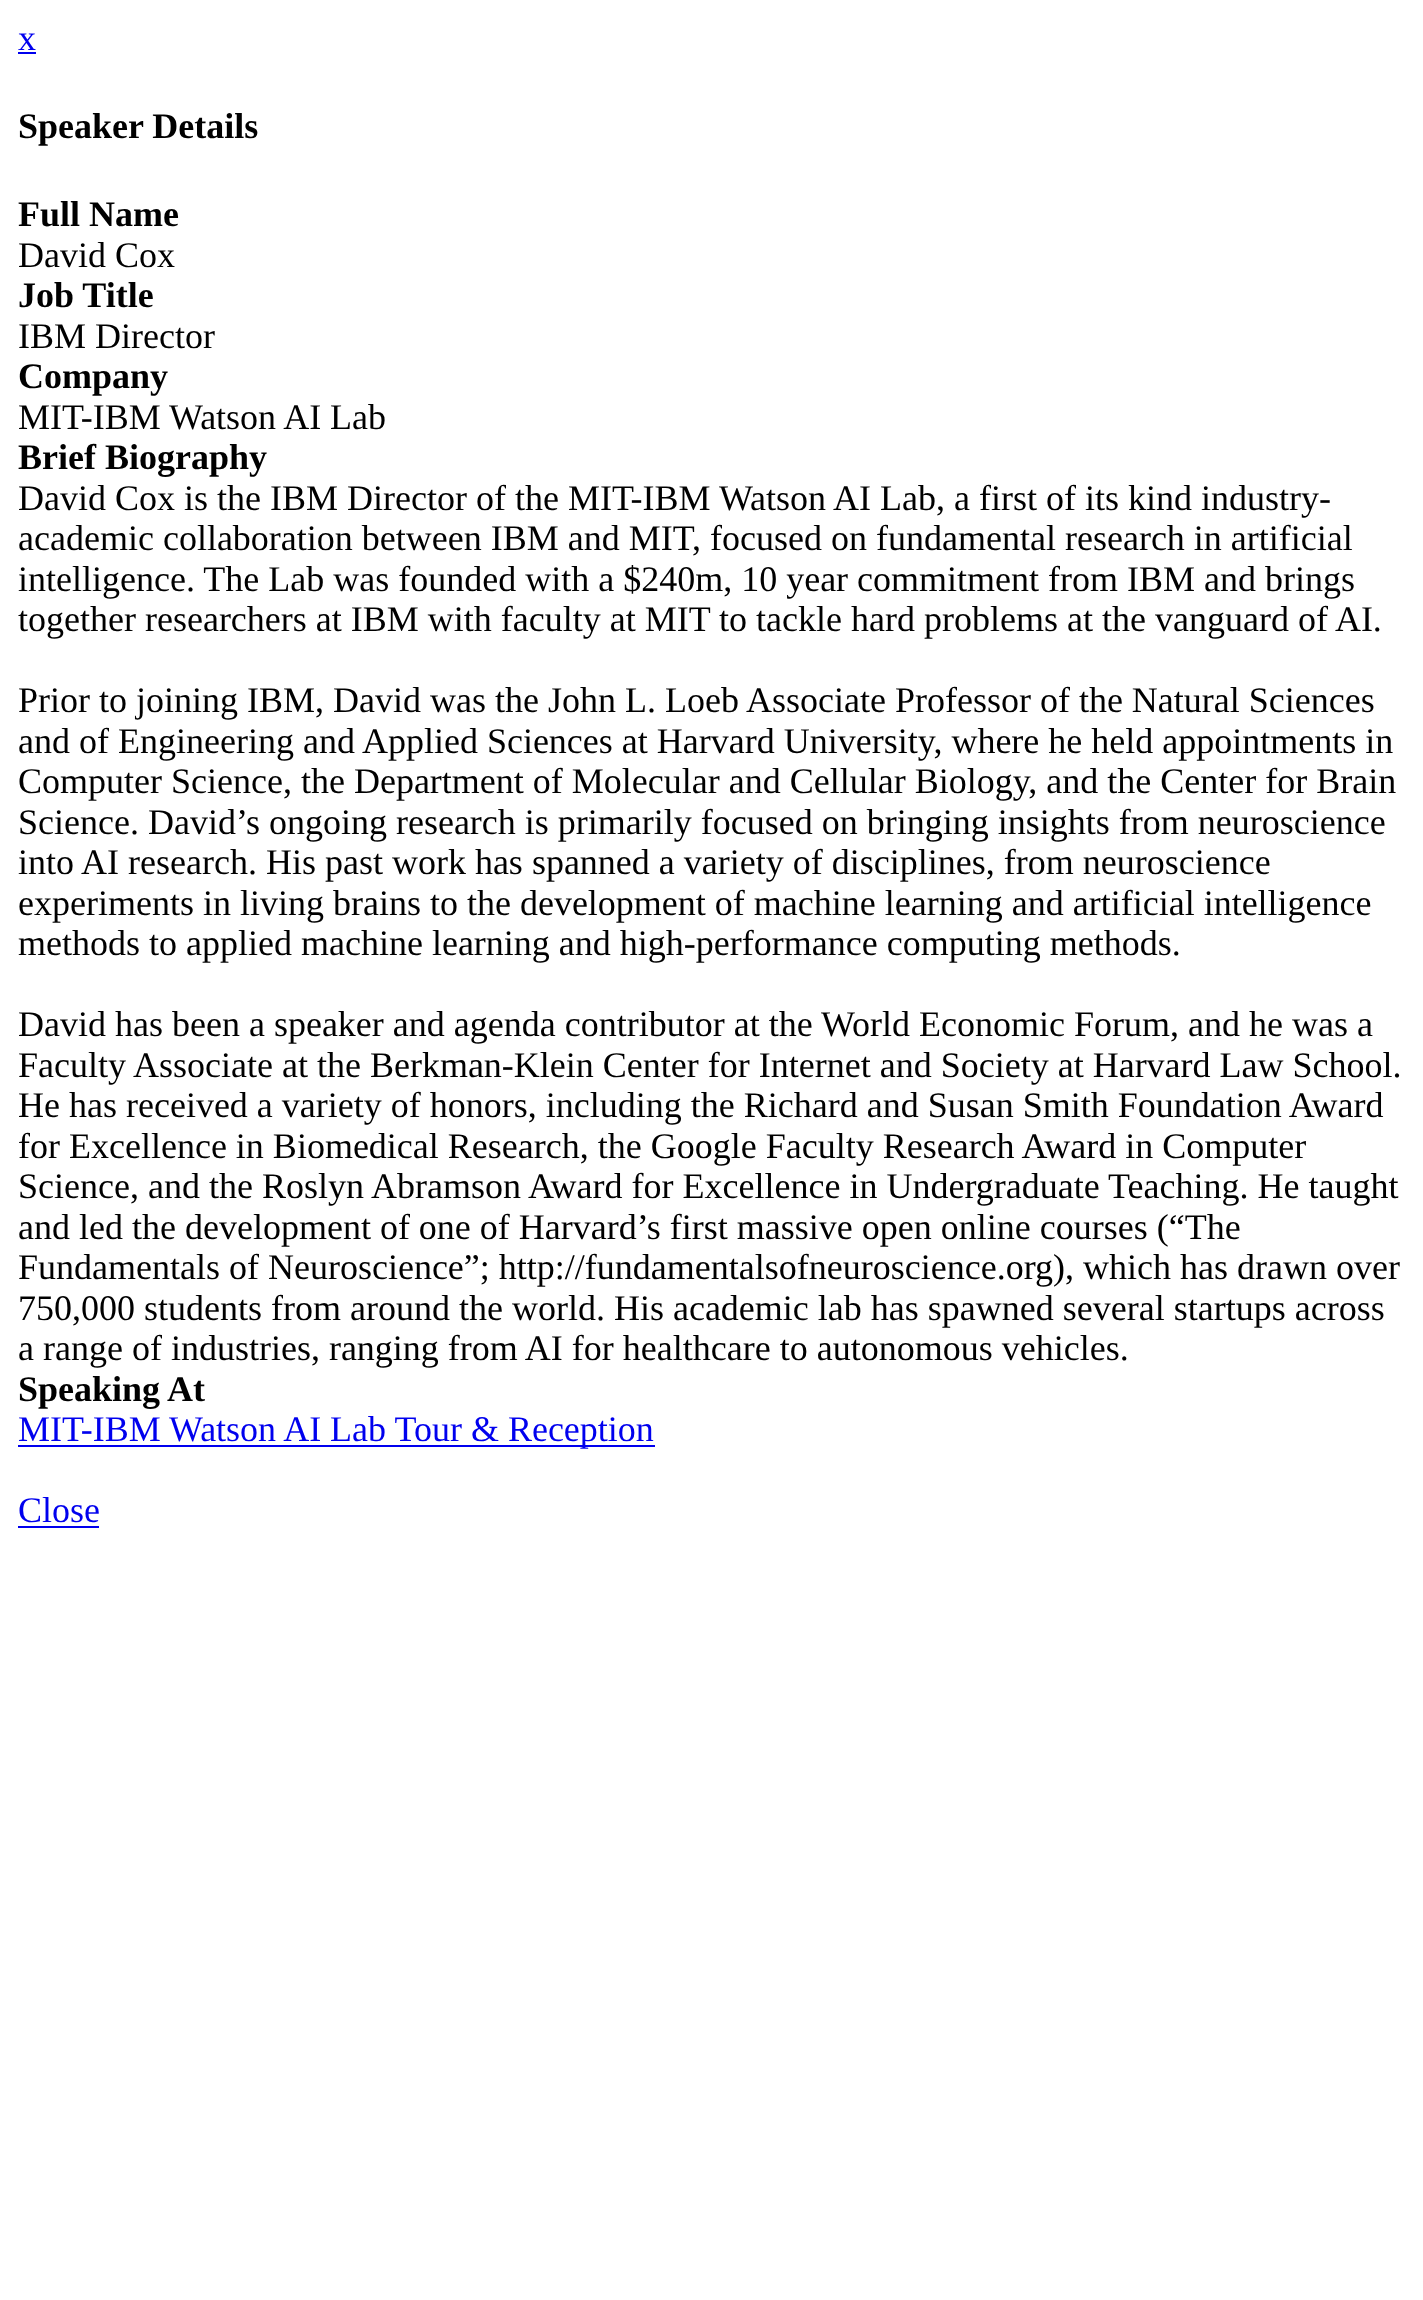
<?xml version="1.0" encoding="UTF-8"?>
<svg xmlns="http://www.w3.org/2000/svg" width="1423" height="2300">
    <rect width="100%" height="100%" fill="#FFFFFF"/>
    <text x="18" y="50" font-family="Liberation Serif" font-size="36" fill="#0000EE">x</text>
    <rect x="18" y="52" width="18" height="2" fill="#0000EE"/>
    <text x="18" y="138" font-family="Liberation Serif" font-size="36" font-weight="700" fill="#000000">Speaker Details</text>
    <text x="18" y="226" font-family="Liberation Serif" font-size="36" font-weight="700" fill="#000000">Full Name</text>
    <text x="18" y="267" font-family="Liberation Serif" font-size="36" fill="#000000">David Cox</text>
    <text x="18" y="307" font-family="Liberation Serif" font-size="36" font-weight="700" fill="#000000">Job Title</text>
    <text x="18" y="348" font-family="Liberation Serif" font-size="36" fill="#000000">IBM Director</text>
    <text x="18" y="388" font-family="Liberation Serif" font-size="36" font-weight="700" fill="#000000">Company</text>
    <text x="18" y="429" font-family="Liberation Serif" font-size="36" fill="#000000">MIT-IBM Watson AI Lab</text>
    <text x="18" y="469" font-family="Liberation Serif" font-size="36" font-weight="700" fill="#000000">Brief Biography</text>
    <text font-family="Liberation Serif" font-size="36" fill="#000000">
        <tspan x="18" y="510">David Cox is the IBM Director of the MIT-IBM Watson AI Lab, a first of its kind industry-</tspan>
        <tspan x="18" y="550">academic collaboration between IBM and MIT, focused on fundamental research in artificial</tspan>
        <tspan x="18" y="591">intelligence. The Lab was founded with a $240m, 10 year commitment from IBM and brings</tspan>
        <tspan x="18" y="631">together researchers at IBM with faculty at MIT to tackle hard problems at the vanguard of AI.</tspan>
    </text>
    <text font-family="Liberation Serif" font-size="36" fill="#000000">
        <tspan x="18" y="712">Prior to joining IBM, David was the John L. Loeb Associate Professor of the Natural Sciences</tspan>
        <tspan x="18" y="753">and of Engineering and Applied Sciences at Harvard University, where he held appointments in</tspan>
        <tspan x="18" y="793">Computer Science, the Department of Molecular and Cellular Biology, and the Center for Brain</tspan>
        <tspan x="18" y="834">Science. David’s ongoing research is primarily focused on bringing insights from neuroscience</tspan>
        <tspan x="18" y="874">into AI research. His past work has spanned a variety of disciplines, from neuroscience</tspan>
        <tspan x="18" y="915">experiments in living brains to the development of machine learning and artificial intelligence</tspan>
        <tspan x="18" y="955">methods to applied machine learning and high-performance computing methods.</tspan>
    </text>
    <text font-family="Liberation Serif" font-size="36" fill="#000000">
        <tspan x="18" y="1036">David has been a speaker and agenda contributor at the World Economic Forum, and he was a</tspan>
        <tspan x="18" y="1077">Faculty Associate at the Berkman-Klein Center for Internet and Society at Harvard Law School.</tspan>
        <tspan x="18" y="1117">He has received a variety of honors, including the Richard and Susan Smith Foundation Award</tspan>
        <tspan x="18" y="1158">for Excellence in Biomedical Research, the Google Faculty Research Award in Computer</tspan>
        <tspan x="18" y="1198">Science, and the Roslyn Abramson Award for Excellence in Undergraduate Teaching. He taught</tspan>
        <tspan x="18" y="1239">and led the development of one of Harvard’s first massive open online courses (“The</tspan>
        <tspan x="18" y="1279">Fundamentals of Neuroscience”; http://fundamentalsofneuroscience.org), which has drawn over</tspan>
        <tspan x="18" y="1320">750,000 students from around the world. His academic lab has spawned several startups across</tspan>
        <tspan x="18" y="1360">a range of industries, ranging from AI for healthcare to autonomous vehicles.</tspan>
    </text>
    <text x="18" y="1401" font-family="Liberation Serif" font-size="36" font-weight="700" fill="#000000">Speaking At</text>
    <rect x="18" y="1445" width="637" height="2" fill="#0000EE"/>
    <text x="18" y="1441" font-family="Liberation Serif" font-size="36" fill="#0000EE">MIT-IBM Watson AI Lab Tour &amp; Reception</text>
    <text x="18" y="1522" font-family="Liberation Serif" font-size="36" fill="#0000EE">Close</text>
    <rect x="18" y="1526" width="81" height="2" fill="#0000EE"/>
</svg>
